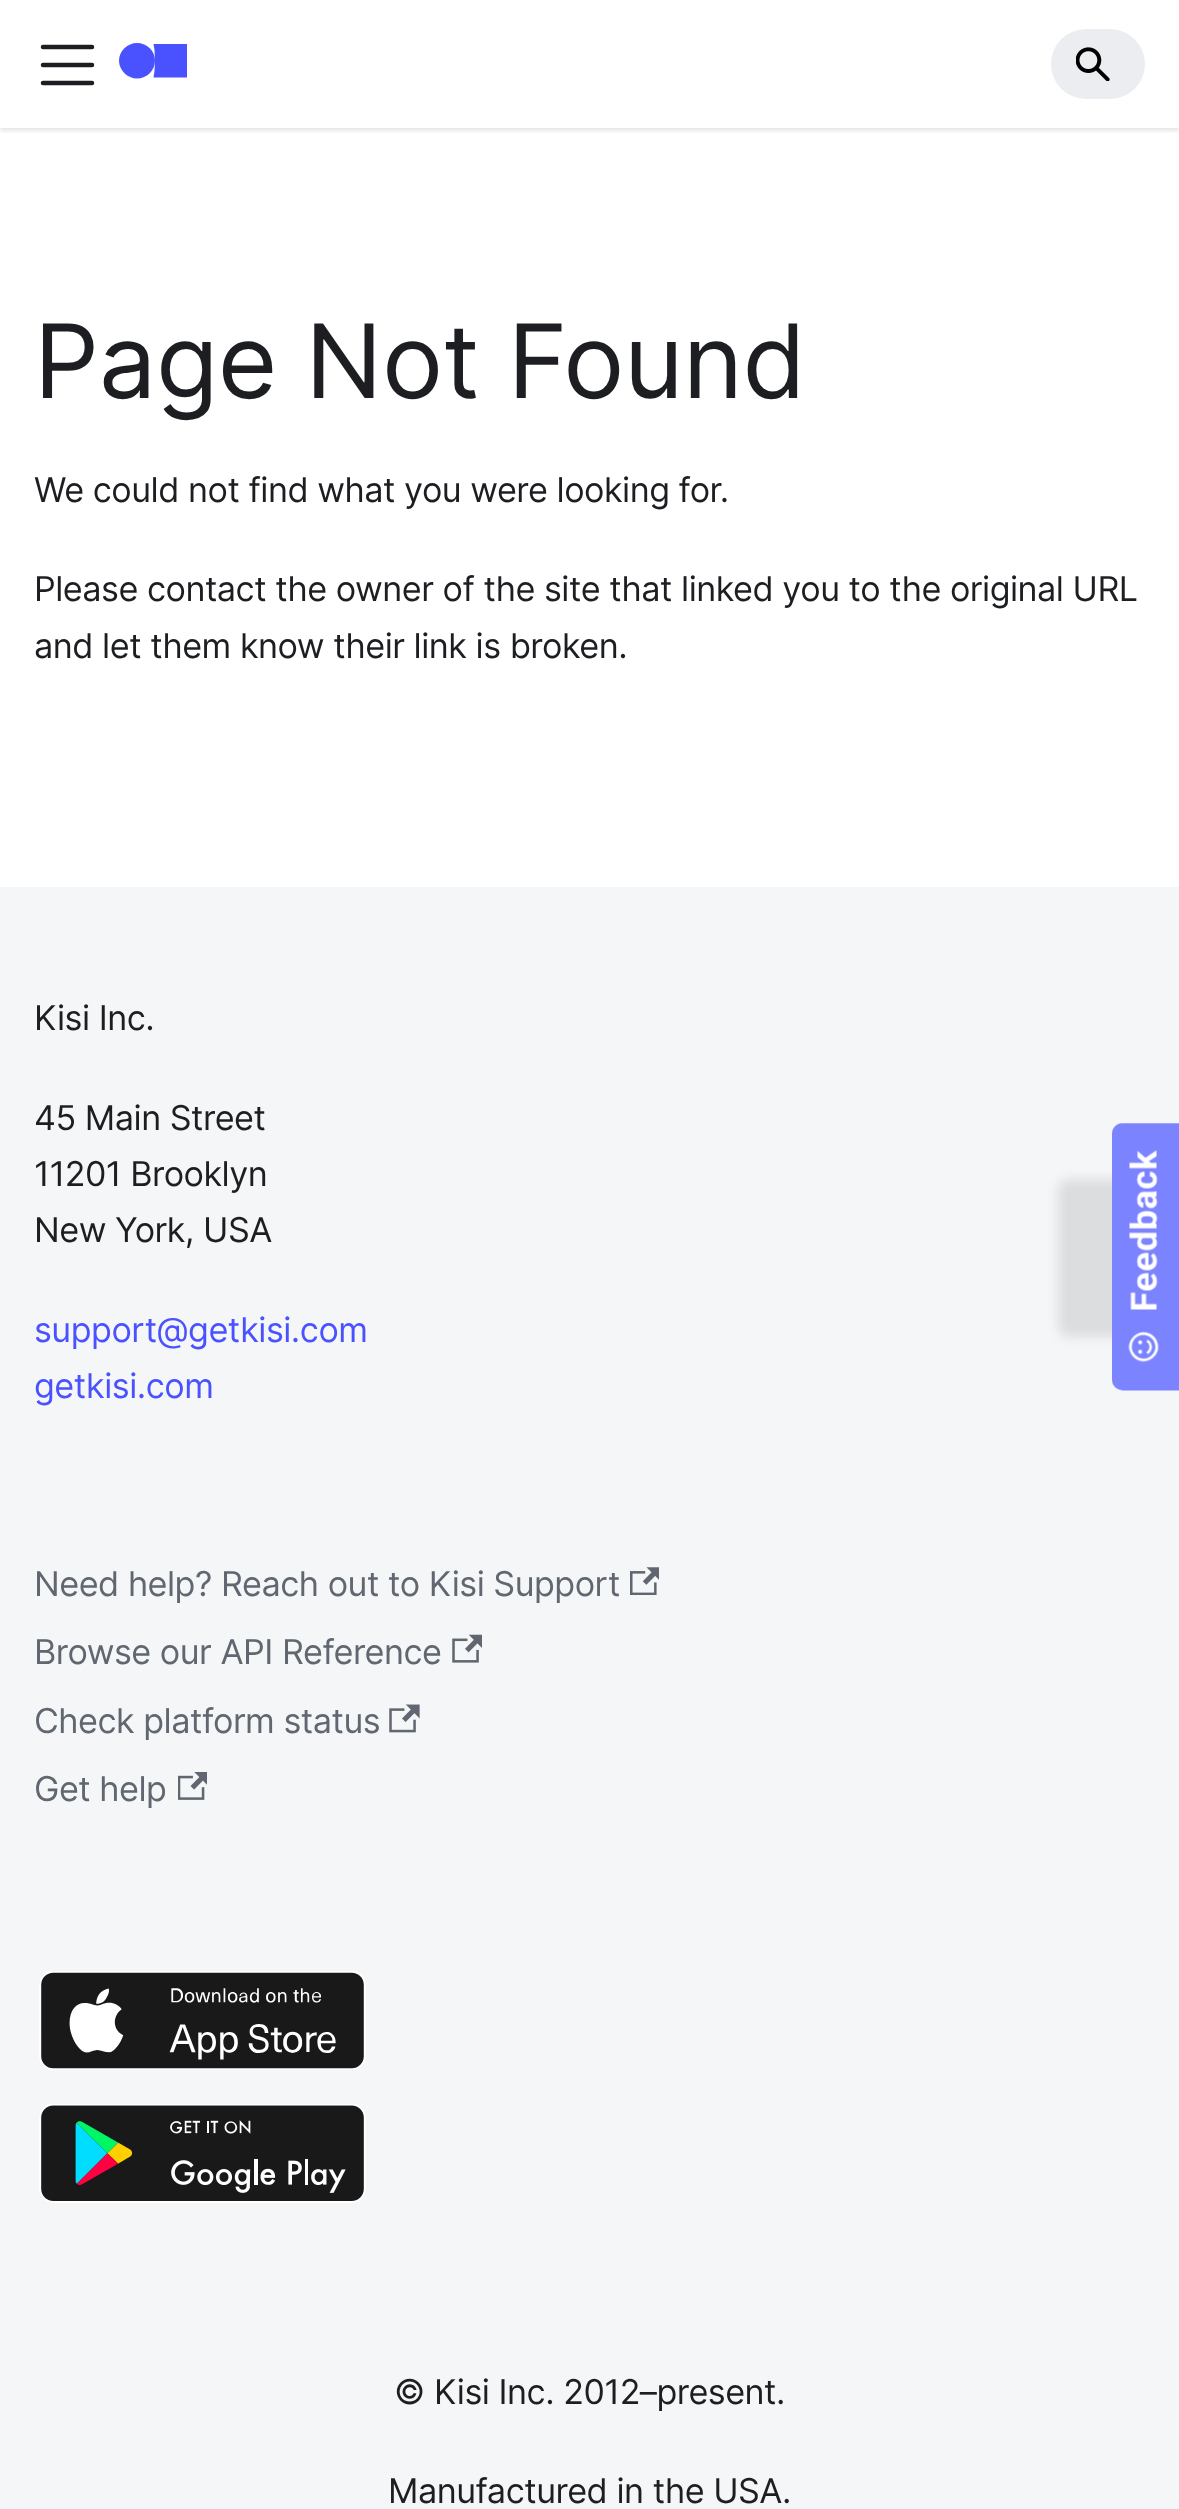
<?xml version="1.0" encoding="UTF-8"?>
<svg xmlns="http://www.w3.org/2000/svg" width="1179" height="2509">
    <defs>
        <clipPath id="clip1"><rect x="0" y="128" width="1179" height="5"/></clipPath>
        <filter id="blur1" x="-50%" y="-200%" width="200%" height="500%"><feGaussianBlur stdDeviation="2"/></filter>
        <filter id="blur2" x="-50%" y="-200%" width="200%" height="500%"><feGaussianBlur stdDeviation="5.5"/></filter>
    </defs>
    <rect width="100%" height="100%" fill="#FFFFFF"/>
    <g clip-path="url(#clip1)">
        <rect x="0" y="2" width="1179" height="129" fill="#000000" fill-opacity="0.1" filter="url(#blur1)"/>
    </g>
    <path d="M 43 47 H 92 M 43 65 H 92 M 43 83 H 92" fill="none" stroke="#1C1E21" stroke-width="4.5" stroke-linecap="round"/>
    <path d="M 187 44 V 77.5 H 153.5 L 154.5 71 L 155 60.5 L 154.5 50 L 153.5 44 Z" fill="#4A52FF"/>
    <path d="M 137 78.5 C 147 78.5 155 70.5 155 60.5 C 155 51 147 43 137 43 C 127.5 43 119 51 119 60.5 C 119 70.5 127.5 78.5 137 78.5 Z" fill="#4A52FF"/>
    <rect x="1051" y="29" width="94" height="70" rx="35" fill="#EBEDF0"/>
    <image x="1076" y="47" width="34" height="34" href="img_01.png"/>
    <text x="34" y="398" font-family="Inter" font-size="102.5" letter-spacing="-0.5" fill="#1C1E21">Page Not Found</text>
    <text x="34" y="502" font-family="Inter" font-size="34.2" letter-spacing="-0.5" fill="#1C1E21">We could not find what you were looking for.</text>
    <text font-family="Inter" font-size="34.2" letter-spacing="-0.5" fill="#1C1E21">
        <tspan x="34" y="601">Please contact the owner of the site that linked you to the original URL</tspan>
        <tspan x="34" y="658">and let them know their link is broken.</tspan>
    </text>
    <rect x="0" y="887" width="1179" height="1622" fill="#F5F6F7"/>
    <text x="34" y="1030" font-family="Inter" font-size="34.2" letter-spacing="-0.5" fill="#1C1E21">Kisi Inc.</text>
    <text font-family="Inter" font-size="34.2" letter-spacing="-0.5" fill="#1C1E21">
        <tspan x="34" y="1130">45 Main Street</tspan>
        <tspan x="34" y="1186">11201 Brooklyn</tspan>
        <tspan x="34" y="1242">New York, USA</tspan>
    </text>
    <text font-family="Inter" font-size="34.2" letter-spacing="-0.5" fill="#4A52FF">
        <tspan x="34" y="1342">support@getkisi.com</tspan>
        <tspan x="34" y="1398">getkisi.com</tspan>
    </text>
    <text x="34" y="1596" font-family="Inter" font-size="34.2" letter-spacing="-0.5" fill="#606770">Need help? Reach out to Kisi Support</text>
    <image x="630" y="1567" width="29" height="28" href="img_02.png"/>
    <text x="34" y="1664" font-family="Inter" font-size="34.2" letter-spacing="-0.5" fill="#606770">Browse our API Reference</text>
    <image x="452" y="1634" width="30" height="29" href="img_03.png"/>
    <text x="34" y="1733" font-family="Inter" font-size="34.2" letter-spacing="-0.5" fill="#606770">Check platform status</text>
    <image x="389" y="1704" width="31" height="29" href="img_04.png"/>
    <text x="34" y="1801" font-family="Inter" font-size="34.2" letter-spacing="-0.5" fill="#606770">Get help</text>
    <image x="178" y="1772" width="29" height="28" href="img_05.png"/>
    <image x="39" y="1971" width="327" height="99" href="img_06.png"/>
    <image x="39" y="2104" width="327" height="99" href="img_07.png"/>
    <text x="394" y="2404" font-family="Inter" font-size="34.2" letter-spacing="-0.5" fill="#1C1E21">© Kisi Inc. 2012–present.</text>
    <text x="388" y="2503" font-family="Inter" font-size="34.2" letter-spacing="-0.5" fill="#1C1E21">Manufactured in the USA.</text>
    <rect x="1058" y="1179" width="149" height="158" rx="11" fill="#000000" fill-opacity="0.1" filter="url(#blur2)"/>
    <image x="1112" y="1123" width="67" height="268" href="img_08.png"/>
</svg>
